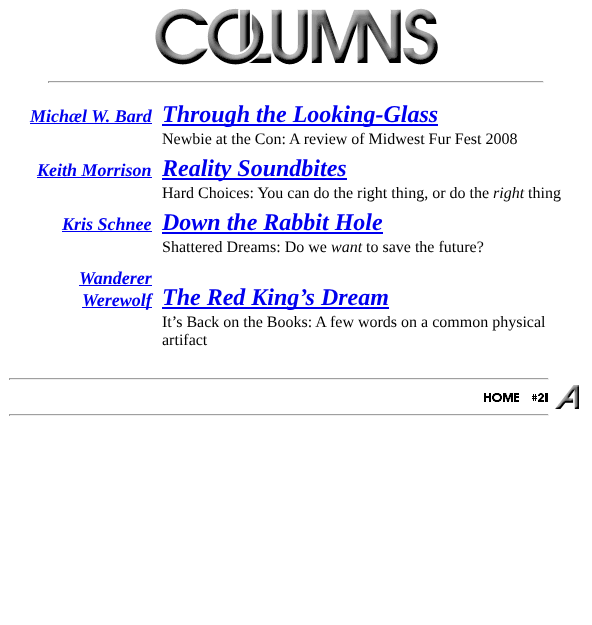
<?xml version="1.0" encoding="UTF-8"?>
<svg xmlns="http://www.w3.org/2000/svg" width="592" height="625">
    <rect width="100%" height="100%" fill="#FFFFFF"/>
    <image x="155" y="8" width="283" height="57" href="img_01.png"/>
    <rect x="48" y="81" width="496" height="1" fill="#9F9F9F"/>
    <rect x="543" y="81" width="1" height="2" fill="#EEEEEE"/>
    <rect x="48" y="82" width="496" height="1" fill="#EEEEEE"/>
    <rect x="48" y="81" width="1" height="2" fill="#9F9F9F"/>
    <text x="30" y="122" font-family="Liberation Serif" font-size="18" font-weight="700" font-style="italic" fill="#0000EE">Michæl W. Bard</text>
    <rect x="30" y="123" width="122" height="1" fill="#0000EE"/>
    <rect x="162" y="124" width="276" height="2" fill="#0000EE"/>
    <text x="162" y="122" font-family="Liberation Serif" font-size="24" font-weight="700" font-style="italic" fill="#0000EE">Through the Looking-Glass</text>
    <text x="162" y="144" font-family="Liberation Serif" font-size="16" fill="#000000">Newbie at the Con: A review of Midwest Fur Fest 2008</text>
    <text x="37" y="176" font-family="Liberation Serif" font-size="18" font-weight="700" font-style="italic" fill="#0000EE">Keith Morrison</text>
    <rect x="37" y="177" width="115" height="1" fill="#0000EE"/>
    <rect x="162" y="178" width="185" height="2" fill="#0000EE"/>
    <text x="162" y="176" font-family="Liberation Serif" font-size="24" font-weight="700" font-style="italic" fill="#0000EE">Reality Soundbites</text>
    <text x="162" y="198" font-family="Liberation Serif" font-size="16" fill="#000000">Hard Choices: You can do the right thing, or do the</text>
    <text x="493" y="198" font-family="Liberation Serif" font-size="16" font-style="italic" fill="#000000">right</text>
    <text x="528" y="198" font-family="Liberation Serif" font-size="16" fill="#000000">thing</text>
    <text x="62" y="230" font-family="Liberation Serif" font-size="18" font-weight="700" font-style="italic" fill="#0000EE">Kris Schnee</text>
    <rect x="62" y="231" width="90" height="1" fill="#0000EE"/>
    <text x="162" y="230" font-family="Liberation Serif" font-size="24" font-weight="700" font-style="italic" fill="#0000EE">Down the Rabbit Hole</text>
    <rect x="162" y="232" width="221" height="2" fill="#0000EE"/>
    <text x="162" y="252" font-family="Liberation Serif" font-size="16" fill="#000000">Shattered Dreams: Do we</text>
    <text x="331" y="252" font-family="Liberation Serif" font-size="16" font-style="italic" fill="#000000">want</text>
    <text x="366" y="252" font-family="Liberation Serif" font-size="16" fill="#000000">to save the future?</text>
    <text x="79" y="284" font-family="Liberation Serif" font-size="18" font-weight="700" font-style="italic" fill="#0000EE">Wanderer</text>
    <rect x="79" y="285" width="73" height="1" fill="#0000EE"/>
    <rect x="82" y="307" width="70" height="1" fill="#0000EE"/>
    <text x="82" y="306" font-family="Liberation Serif" font-size="18" font-weight="700" font-style="italic" fill="#0000EE">Werewolf</text>
    <rect x="162" y="307" width="227" height="2" fill="#0000EE"/>
    <text x="162" y="305" font-family="Liberation Serif" font-size="24" font-weight="700" font-style="italic" fill="#0000EE">The Red King’s Dream</text>
    <text font-family="Liberation Serif" font-size="16" fill="#000000">
        <tspan x="162" y="327">It’s Back on the Books: A few words on a common physical</tspan>
        <tspan x="162" y="345">artifact</tspan>
    </text>
    <rect x="9" y="378" width="540" height="1" fill="#9F9F9F"/>
    <rect x="548" y="378" width="1" height="2" fill="#EEEEEE"/>
    <rect x="9" y="379" width="540" height="1" fill="#EEEEEE"/>
    <rect x="9" y="378" width="1" height="2" fill="#9F9F9F"/>
    <image x="484" y="393" width="35" height="9" href="img_02.png"/>
    <image x="532" y="394" width="5" height="7" href="img_03.png"/>
    <image x="538" y="393" width="6" height="9" href="img_04.png"/>
    <rect x="545" y="393" width="3" height="9" fill="#000000"/>
    <rect x="9" y="414" width="540" height="1" fill="#9F9F9F"/>
    <rect x="548" y="414" width="1" height="2" fill="#EEEEEE"/>
    <rect x="9" y="415" width="540" height="1" fill="#EEEEEE"/>
    <rect x="9" y="414" width="1" height="2" fill="#9F9F9F"/>
    <image x="555" y="385" width="24" height="24" href="img_05.png"/>
</svg>
